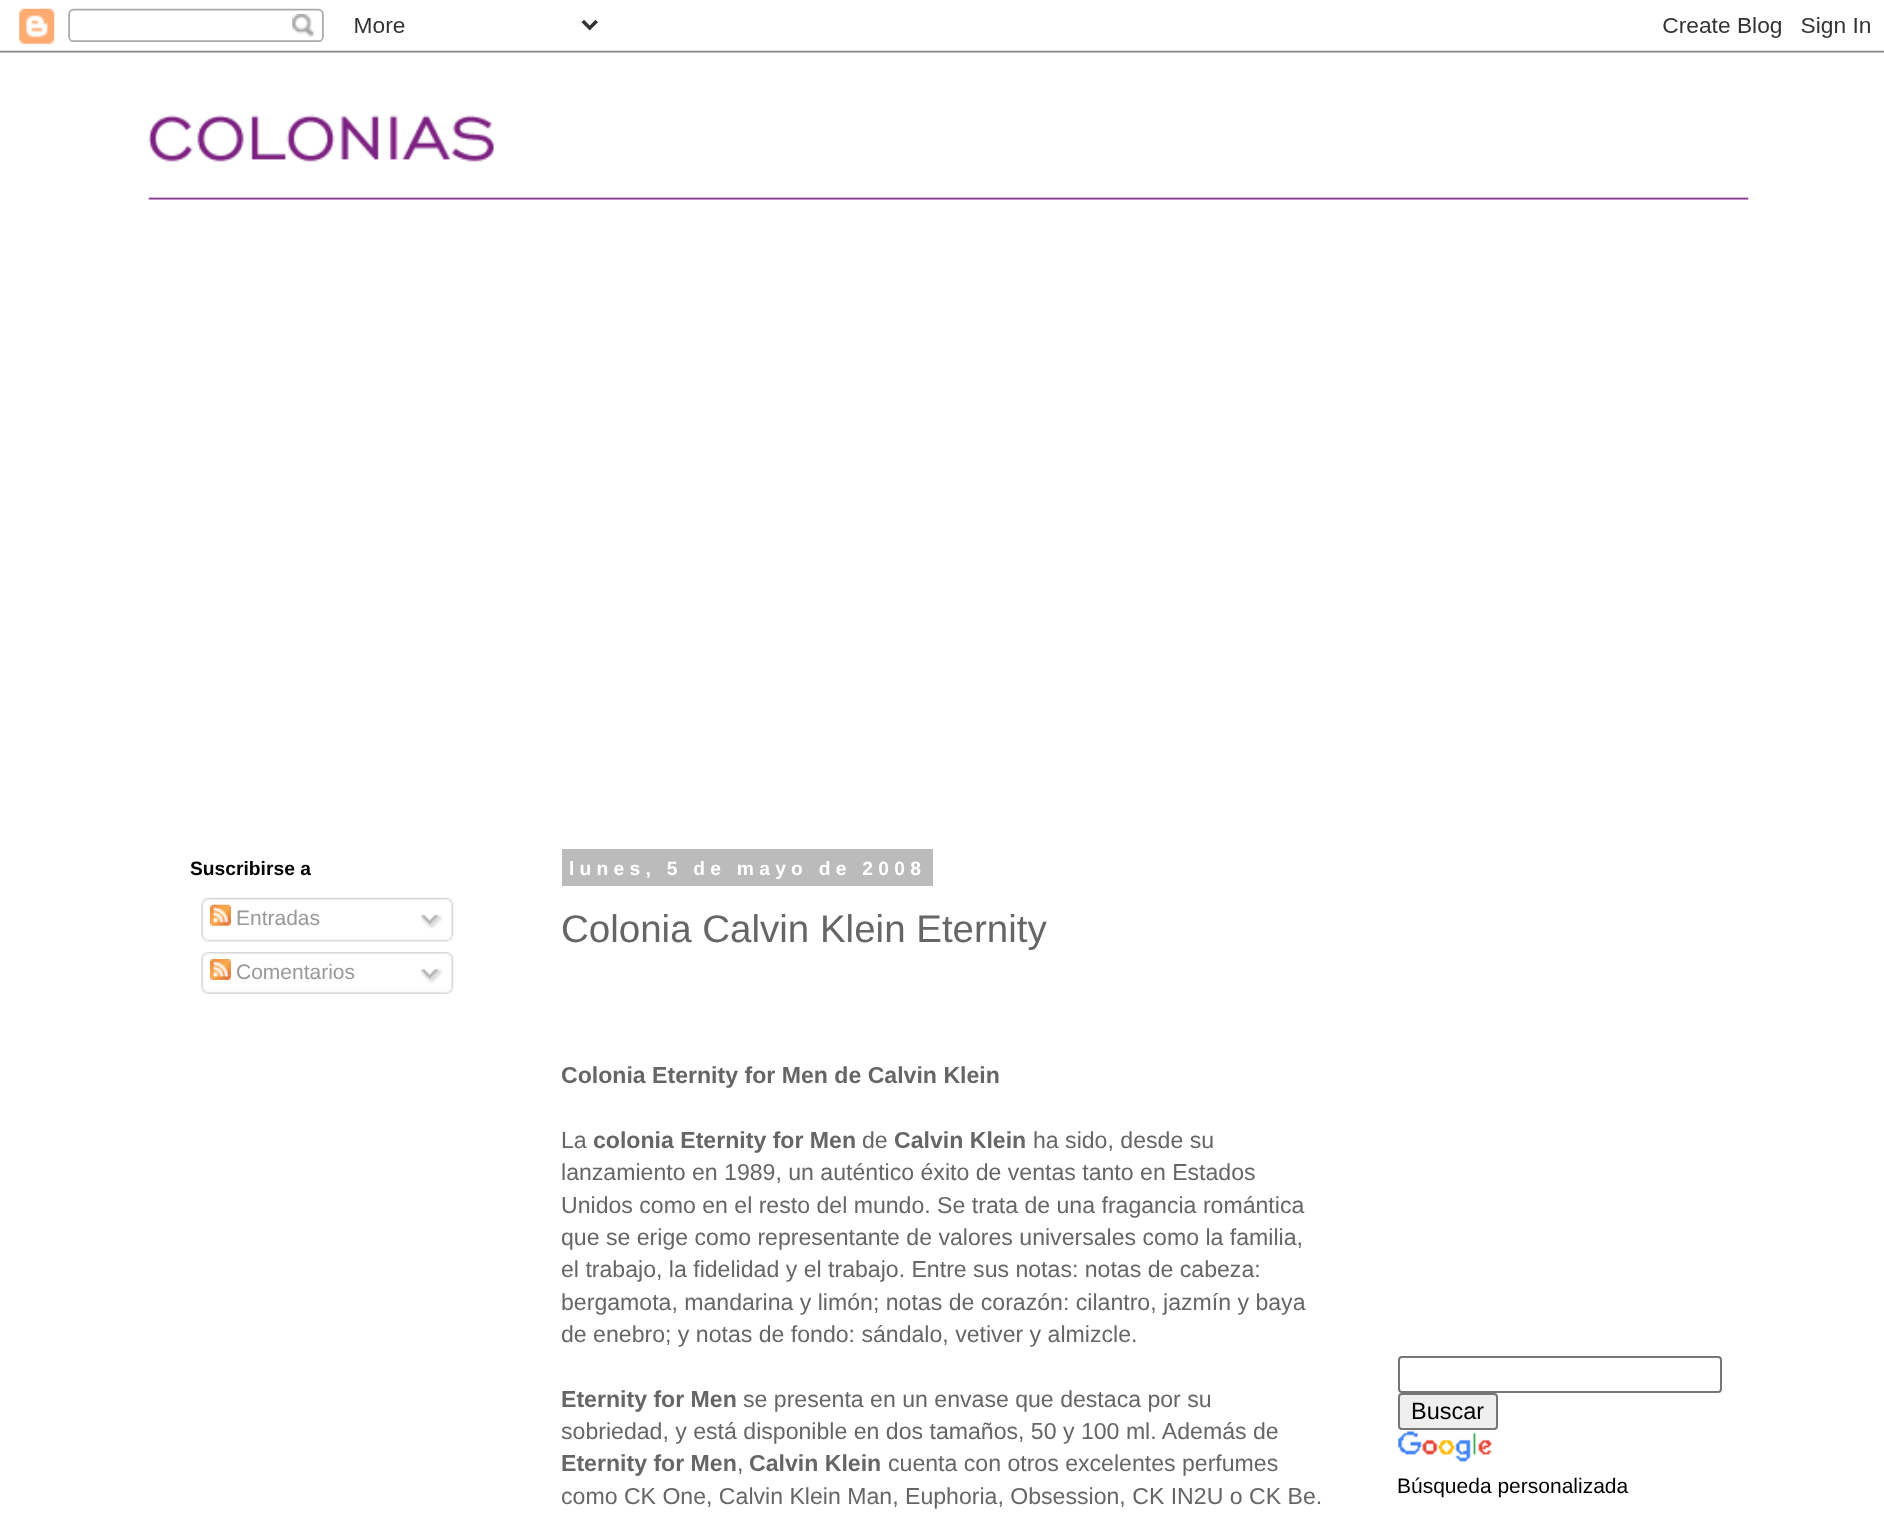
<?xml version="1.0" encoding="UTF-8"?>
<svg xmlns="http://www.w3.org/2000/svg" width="1884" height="1539">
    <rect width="100%" height="100%" fill="#FFFFFF"/>
    <image x="0" y="8" width="1884" height="45" href="img_01.png"/>
    <image x="148" y="115" width="1601" height="85" href="img_02.png"/>
    <text x="190" y="875" font-family="Liberation Sans" font-size="19.25" font-weight="700" fill="#000000">Suscribirse a</text>
    <image x="201" y="897" width="253" height="40" href="img_03.png"/>
    <image x="210" y="904" width="21" height="22" href="img_04.png"/>
    <text x="236" y="925" font-family="Liberation Sans" font-size="21" fill="#999999">Entradas</text>
    <image x="420" y="914" width="23" height="15" href="img_05.png"/>
    <image x="201" y="936" width="252" height="6" href="img_06.png"/>
    <image x="201" y="952" width="253" height="37" href="img_07.png"/>
    <image x="210" y="959" width="21" height="21" href="img_08.png"/>
    <text x="236" y="979" font-family="Liberation Sans" font-size="21" fill="#999999">Comentarios</text>
    <image x="420" y="968" width="23" height="16" href="img_09.png"/>
    <image x="201" y="988" width="252" height="6" href="img_10.png"/>
    <rect x="562" y="849" width="371" height="37" fill="#BBBBBB"/>
    <text x="569" y="875" font-family="Liberation Sans" font-size="19.25" font-weight="700" letter-spacing="5.25" fill="#FFFFFF">lunes, 5 de mayo de 2008</text>
    <text x="561" y="942" font-family="Liberation Sans" font-size="38.5" fill="#666666">Colonia Calvin Klein Eternity</text>
    <text x="561" y="1083" font-family="Liberation Sans" font-size="23.1" font-weight="700" fill="#666666">Colonia Eternity for Men de Calvin Klein</text>
    <text x="561" y="1148" font-family="Liberation Sans" font-size="23.1" fill="#666666">La</text>
    <text x="593" y="1148" font-family="Liberation Sans" font-size="23.1" font-weight="700" fill="#666666">colonia Eternity for Men</text>
    <text x="862" y="1148" font-family="Liberation Sans" font-size="23.1" fill="#666666">de</text>
    <text x="894" y="1148" font-family="Liberation Sans" font-size="23.1" font-weight="700" fill="#666666">Calvin Klein</text>
    <text x="1033" y="1148" font-family="Liberation Sans" font-size="23.1" fill="#666666">ha sido, desde su</text>
    <text font-family="Liberation Sans" font-size="23.1" fill="#666666">
        <tspan x="561" y="1180">lanzamiento en 1989, un auténtico éxito de ventas tanto en Estados</tspan>
        <tspan x="561" y="1213">Unidos como en el resto del mundo. Se trata de una fragancia romántica</tspan>
        <tspan x="561" y="1245">que se erige como representante de valores universales como la familia,</tspan>
        <tspan x="561" y="1277">el trabajo, la fidelidad y el trabajo. Entre sus notas: notas de cabeza:</tspan>
        <tspan x="561" y="1310">bergamota, mandarina y limón; notas de corazón: cilantro, jazmín y baya</tspan>
        <tspan x="561" y="1342">de enebro; y notas de fondo: sándalo, vetiver y almizcle.</tspan>
    </text>
    <text x="561" y="1407" font-family="Liberation Sans" font-size="23.1" font-weight="700" fill="#666666">Eternity for Men</text>
    <text x="743" y="1407" font-family="Liberation Sans" font-size="23.1" fill="#666666">se presenta en un envase que destaca por su</text>
    <text x="561" y="1439" font-family="Liberation Sans" font-size="23.1" fill="#666666">sobriedad, y está disponible en dos tamaños, 50 y 100 ml. Además de</text>
    <text x="561" y="1471" font-family="Liberation Sans" font-size="23.1" font-weight="700" fill="#666666">Eternity for Men</text>
    <text x="737" y="1471" font-family="Liberation Sans" font-size="23.1" fill="#666666">,</text>
    <text x="749" y="1471" font-family="Liberation Sans" font-size="23.1" font-weight="700" fill="#666666">Calvin Klein</text>
    <text x="888" y="1471" font-family="Liberation Sans" font-size="23.1" fill="#666666">cuenta con otros excelentes perfumes</text>
    <text x="561" y="1504" font-family="Liberation Sans" font-size="23.1" fill="#666666">como CK One, Calvin Klein Man, Euphoria, Obsession, CK IN2U o CK Be.</text>
    <rect x="1399" y="1357" width="322" height="35" rx="3" fill="none" stroke="#767676" stroke-width="2"/>
    <rect x="1399" y="1394" width="98" height="35" rx="3" fill="#EFEFEF" stroke="#767676" stroke-width="2"/>
    <text x="1411" y="1419" font-family="Liberation Sans" font-size="23.5" fill="#000000">Buscar</text>
    <image x="1398" y="1431" width="94" height="31" href="img_11.png"/>
    <text x="1397" y="1493" font-family="Liberation Sans" font-size="21" fill="#000000">Búsqueda personalizada</text>
</svg>
